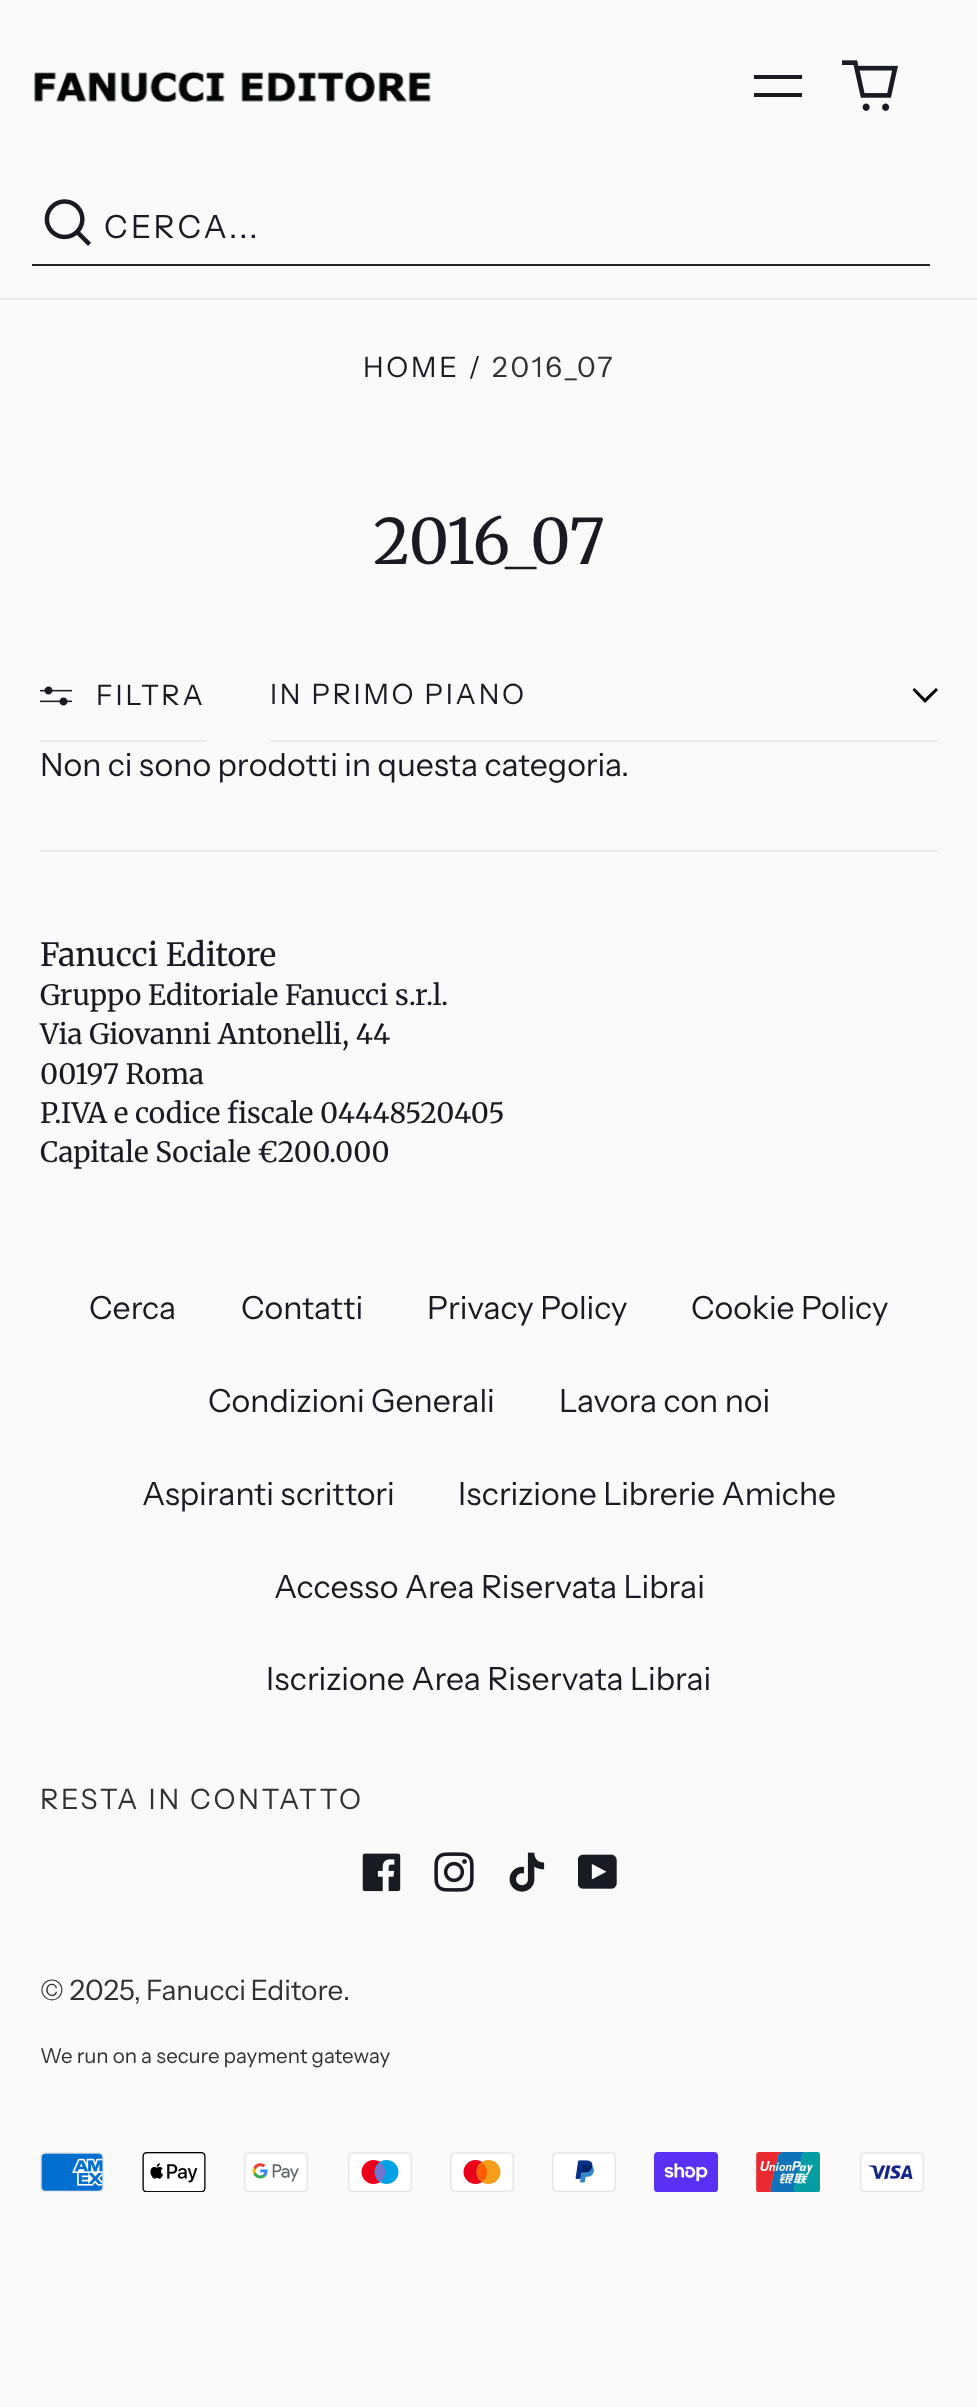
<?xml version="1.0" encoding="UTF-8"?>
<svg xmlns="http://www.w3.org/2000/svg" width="977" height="2407">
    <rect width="100%" height="100%" fill="#FAFAFA"/>
    <rect x="0" y="298" width="977" height="2" fill="#EBEBEB"/>
    <image x="34" y="71" width="397" height="32" href="img_01.png"/>
    <path d="M 802 93 V 97 H 754 V 93 Z M 802 75 V 79 H 754 V 75 Z" fill="#1A1A23" fill-rule="evenodd"/>
    <image x="842" y="60" width="56" height="51" href="img_02.png"/>
    <image x="44" y="199" width="47" height="47" href="img_03.png"/>
    <rect x="32" y="264" width="898" height="2" fill="#222222"/>
    <text x="104" y="238" font-family="Instrument Sans" font-size="32" letter-spacing="3.25" fill="#1A1A23">CERCA...</text>
    <text x="363" y="377" font-family="Instrument Sans" font-size="28" letter-spacing="2.75" fill="#1A1A23">HOME /</text>
    <text x="492" y="377" font-family="Instrument Sans" font-size="28" letter-spacing="2.75" fill="#323131">2016_07</text>
    <text x="373" y="564" font-family="Merriweather" font-size="62.5" fill="#1A1A23">2016_07</text>
    <rect x="40" y="740" width="166" height="2" fill="#EBEBEB"/>
    <image x="40" y="686" width="32" height="20" href="img_04.png"/>
    <text x="96" y="705" font-family="Instrument Sans" font-size="28" letter-spacing="2.75" fill="#1A1A23">FILTRA</text>
    <path d="M 936 688 L 938 690 L 925 703 L 912.5 690 L 914.5 688 L 925 698.5 Z" fill="#000000" fill-rule="evenodd"/>
    <rect x="270" y="740" width="668" height="2" fill="#EBEBEB"/>
    <text x="270" y="704" font-family="Instrument Sans" font-size="28" letter-spacing="2.75" fill="#1A1A23">IN PRIMO PIANO</text>
    <text x="40" y="776" font-family="Instrument Sans" font-size="32" fill="#1A1A23">Non ci sono prodotti in questa categoria.</text>
    <rect x="40" y="850" width="898" height="2" fill="#EBEBEB"/>
    <text x="40" y="966" font-family="Merriweather" font-size="32" fill="#1A1A23">Fanucci Editore</text>
    <text font-family="Merriweather" font-size="28" fill="#1A1A23">
        <tspan x="40" y="1005">Gruppo Editoriale Fanucci s.r.l.</tspan>
        <tspan x="40" y="1044">Via Giovanni Antonelli, 44</tspan>
        <tspan x="40" y="1084">00197 Roma</tspan>
        <tspan x="40" y="1123">P.IVA e codice fiscale 04448520405</tspan>
        <tspan x="40" y="1162">Capitale Sociale €200.000</tspan>
    </text>
    <text x="89" y="1319" font-family="Instrument Sans" font-size="32" fill="#1A1A23">Cerca</text>
    <text x="241" y="1319" font-family="Instrument Sans" font-size="32" fill="#1A1A23">Contatti</text>
    <text x="427" y="1319" font-family="Instrument Sans" font-size="32" fill="#1A1A23">Privacy Policy</text>
    <text x="691" y="1319" font-family="Instrument Sans" font-size="32" fill="#1A1A23">Cookie Policy</text>
    <text x="208" y="1412" font-family="Instrument Sans" font-size="32" fill="#1A1A23">Condizioni Generali</text>
    <text x="559" y="1412" font-family="Instrument Sans" font-size="32" fill="#1A1A23">Lavora con noi</text>
    <text x="142" y="1505" font-family="Instrument Sans" font-size="32" fill="#1A1A23">Aspiranti scrittori</text>
    <text x="458" y="1505" font-family="Instrument Sans" font-size="32" fill="#1A1A23">Iscrizione Librerie Amiche</text>
    <text x="274" y="1598" font-family="Instrument Sans" font-size="32" fill="#1A1A23">Accesso Area Riservata Librai</text>
    <text x="266" y="1690" font-family="Instrument Sans" font-size="32" fill="#1A1A23">Iscrizione Area Riservata Librai</text>
    <text x="40" y="1809" font-family="Instrument Sans" font-size="28" letter-spacing="2.75" fill="#323131">RESTA IN CONTATTO</text>
    <image x="362" y="1853" width="39" height="39" href="img_05.png"/>
    <image x="434" y="1852" width="40" height="40" href="img_06.png"/>
    <image x="509" y="1852" width="36" height="40" href="img_07.png"/>
    <image x="578" y="1854" width="39" height="35" href="img_08.png"/>
    <text x="40" y="2000" font-family="Instrument Sans" font-size="28" fill="#323131">© 2025,</text>
    <text x="146" y="2000" word-spacing="-1" font-family="Instrument Sans" font-size="28" fill="#323131">Fanucci Editore</text>
    <text x="343" y="2000" font-family="Instrument Sans" font-size="28" fill="#323131">.</text>
    <text x="40" y="2063" font-family="Instrument Sans" font-size="20.5" fill="#323131">We run on a secure payment gateway</text>
    <image x="40" y="2152" width="64" height="40" href="img_09.png"/>
    <image x="142" y="2152" width="64" height="40" href="img_10.png"/>
    <image x="244" y="2152" width="64" height="40" href="img_11.png"/>
    <image x="348" y="2152" width="64" height="40" href="img_12.png"/>
    <image x="450" y="2152" width="64" height="40" href="img_13.png"/>
    <image x="552" y="2152" width="64" height="40" href="img_14.png"/>
    <image x="654" y="2152" width="64" height="40" href="img_15.png"/>
    <image x="756" y="2152" width="64" height="40" href="img_16.png"/>
    <image x="860" y="2152" width="64" height="40" href="img_17.png"/>
</svg>
